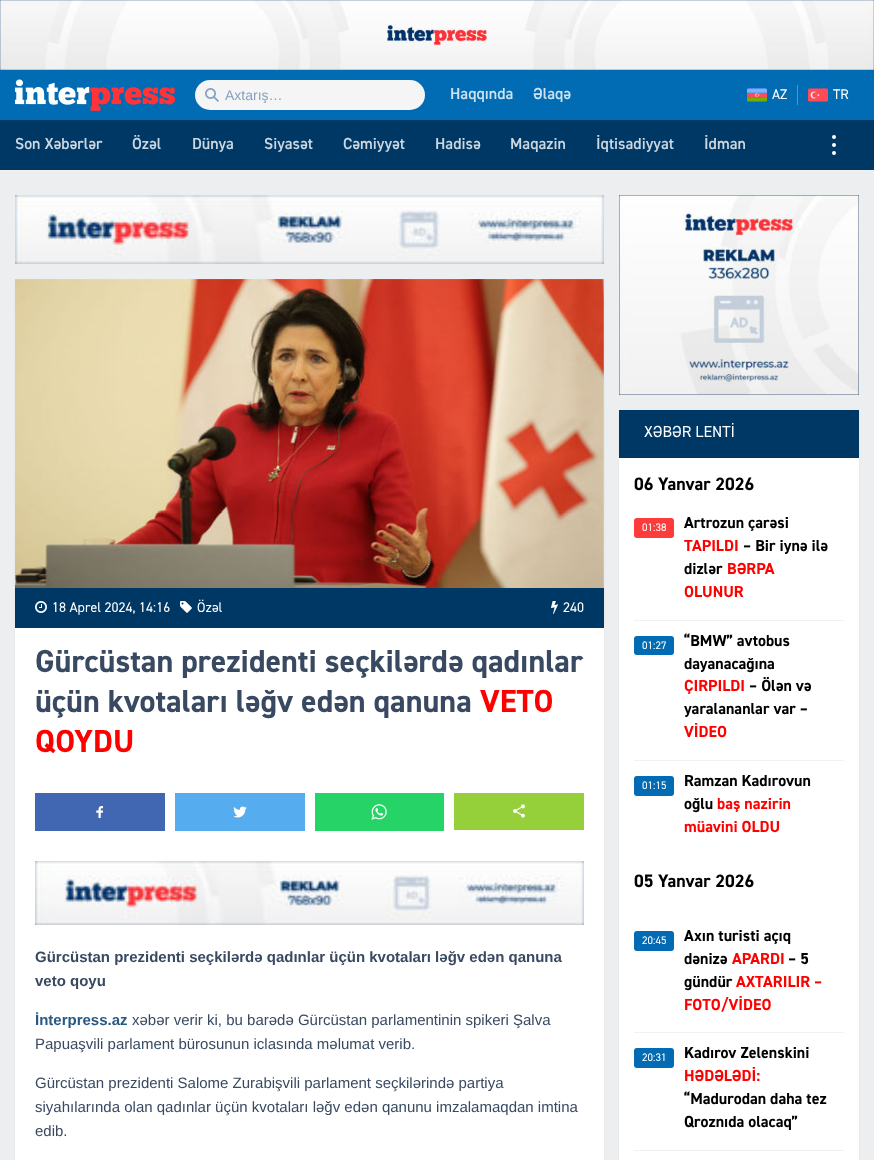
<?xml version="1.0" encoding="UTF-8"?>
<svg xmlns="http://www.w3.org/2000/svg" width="874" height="1160">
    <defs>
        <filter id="blur1" x="-50%" y="-200%" width="200%" height="500%"><feGaussianBlur stdDeviation="1.5"/></filter>
    </defs>
    <rect width="100%" height="100%" fill="#EDEEF0"/>
    <image x="0" y="0" width="874" height="70" href="img_01.png"/>
    <rect x="0" y="70" width="874" height="50" fill="#016CB4"/>
    <image x="15" y="79" width="160" height="32" href="img_02.png"/>
    <rect x="195" y="80" width="230" height="30" rx="15" fill="#F5F5F5"/>
    <image x="205" y="88" width="14" height="14" href="img_03.png"/>
    <text x="225" y="100" font-family="Liberation Sans" font-size="14" fill="#86A1BF">Axtarış…</text>
    <text x="450" y="99" font-family="'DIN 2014'" font-size="16" font-weight="600" fill="#CCE2F0">Haqqında</text>
    <text x="533" y="99" font-family="'DIN 2014'" font-size="16" font-weight="600" fill="#CCE2F0">Əlaqə</text>
    <rect x="797" y="85" width="1" height="20" fill="#4D98CB"/>
    <image x="747" y="88" width="20" height="14" href="img_04.png"/>
    <text x="772" y="99" font-family="'DIN 2014'" font-size="14" fill="#FFFFFF">AZ</text>
    <image x="808" y="88" width="20" height="14" href="img_05.png"/>
    <text x="833" y="99" font-family="'DIN 2014'" font-size="14" fill="#FFFFFF">TR</text>
    <rect x="0" y="120" width="874" height="50" fill="#003865"/>
    <text x="15" y="149" font-family="'DIN 2014'" font-size="16" font-weight="600" fill="#CCD7E0">Son Xəbərlər</text>
    <text x="132" y="149" font-family="'DIN 2014'" font-size="16" font-weight="600" fill="#CCD7E0">Özəl</text>
    <text x="192" y="149" font-family="'DIN 2014'" font-size="16" font-weight="600" fill="#CCD7E0">Dünya</text>
    <text x="264" y="149" font-family="'DIN 2014'" font-size="16" font-weight="600" fill="#CCD7E0">Siyasət</text>
    <text x="343" y="149" font-family="'DIN 2014'" font-size="16" font-weight="600" fill="#CCD7E0">Cəmiyyət</text>
    <text x="435" y="149" font-family="'DIN 2014'" font-size="16" font-weight="600" fill="#CCD7E0">Hadisə</text>
    <text x="510" y="149" font-family="'DIN 2014'" font-size="16" font-weight="600" fill="#CCD7E0">Maqazin</text>
    <text x="596" y="149" font-family="'DIN 2014'" font-size="16" font-weight="600" fill="#CCD7E0">İqtisadiyyat</text>
    <text x="704" y="149" font-family="'DIN 2014'" font-size="16" font-weight="600" fill="#CCD7E0">İdman</text>
    <circle cx="834" cy="137" r="2" fill="#FFFFFF"/>
    <circle cx="834" cy="145" r="2" fill="#FFFFFF"/>
    <circle cx="834" cy="153" r="2" fill="#FFFFFF"/>
    <rect x="0" y="170" width="874" height="1" fill="#F1F1F3"/>
    <image x="15" y="195" width="589" height="69" href="img_06.png"/>
    <rect x="15" y="281" width="589" height="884" fill="#CCCCCC" fill-opacity="0.3" filter="url(#blur1)"/>
    <rect x="15" y="628" width="589" height="532" fill="#FFFFFF"/>
    <image x="15" y="279" width="589" height="309" href="img_07.png"/>
    <image x="15" y="279" width="589" height="309" href="img_08.png"/>
    <rect x="15" y="588" width="589" height="40" fill="#003865"/>
    <image x="35" y="601" width="12" height="12" href="img_09.png"/>
    <text x="52" y="612" font-family="'DIN 2014'" font-size="14" fill="#FFFFFF">18 Aprel 2024, 14:16</text>
    <image x="180" y="601" width="12" height="12" href="img_10.png"/>
    <text x="197" y="612" font-family="'DIN 2014'" font-size="14" fill="#FFFFFF">Özəl</text>
    <image x="551" y="601" width="7" height="13" href="img_11.png"/>
    <text x="563" y="612" font-family="'DIN 2014'" font-size="14" fill="#FFFFFF">240</text>
    <text font-family="'DIN 2014'" font-size="32" font-weight="700" fill="#384961">
        <tspan x="35" y="672">Gürcüstan prezidenti seçkilərdə qadınlar</tspan>
        <tspan x="35" y="712">üçün kvotaları ləğv edən qanuna</tspan>
    </text>
    <text x="480" y="712" font-family="'DIN 2014'" font-size="32" font-weight="700" fill="#FF0000">VETO</text>
    <text x="35" y="752" font-family="'DIN 2014'" font-size="32" font-weight="700" fill="#FF0000">QOYDU</text>
    <rect x="35" y="793" width="130" height="38" fill="#4267B2"/>
    <image x="96" y="806" width="7" height="12" href="img_12.png"/>
    <rect x="175" y="793" width="130" height="38" fill="#55ACEE"/>
    <image x="233" y="806" width="14" height="12" href="img_13.png"/>
    <rect x="315" y="793" width="129" height="38" fill="#25D366"/>
    <image x="371" y="804" width="16" height="16" href="img_14.png"/>
    <rect x="454" y="793" width="130" height="37" fill="#95D03A"/>
    <image x="513" y="804" width="12" height="14" href="img_15.png"/>
    <image x="35" y="861" width="549" height="64" href="img_16.png"/>
    <text font-family="Liberation Sans" font-size="15" font-weight="700" fill="#384961">
        <tspan x="35" y="962">Gürcüstan prezidenti seçkilərdə qadınlar üçün kvotaları ləğv edən qanuna</tspan>
        <tspan x="35" y="986">veto qoyu</tspan>
    </text>
    <text x="35" y="1025" font-family="Liberation Sans" font-size="15" font-weight="700" fill="#2A5885">İnterpress.az</text>
    <text x="132" y="1025" font-family="Liberation Sans" font-size="15" fill="#384961">xəbər verir ki, bu barədə Gürcüstan parlamentinin spikeri Şalva</text>
    <text x="35" y="1049" font-family="Liberation Sans" font-size="15" fill="#384961">Papuaşvili parlament bürosunun iclasında məlumat verib.</text>
    <text font-family="Liberation Sans" font-size="15" fill="#384961">
        <tspan x="35" y="1088">Gürcüstan prezidenti Salome Zurabişvili parlament seçkilərində partiya</tspan>
        <tspan x="35" y="1112">siyahılarında olan qadınlar üçün kvotaları ləğv edən qanunu imzalamaqdan imtina</tspan>
        <tspan x="35" y="1136">edib.</tspan>
    </text>
    <image x="619" y="195" width="240" height="200" href="img_17.png"/>
    <rect x="619" y="412" width="240" height="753" fill="#CCCCCC" fill-opacity="0.3" filter="url(#blur1)"/>
    <rect x="619" y="458" width="240" height="702" fill="#FFFFFF"/>
    <rect x="619" y="410" width="240" height="48" fill="#003865"/>
    <text x="644" y="437" font-family="'DIN 2014'" font-size="16" fill="#FFFFFF">XƏBƏR LENTİ</text>
    <text x="634" y="490" font-family="'DIN 2014'" font-size="18" font-weight="700" fill="#000000">06 Yanvar 2026</text>
    <rect x="634" y="620" width="210" height="1" fill="#F1F1F1"/>
    <rect x="634" y="518" width="40" height="20" rx="3" fill="#FD3B3B"/>
    <text x="642" y="531" font-family="'DIN 2014'" font-size="11" fill="#FFFFFF">01:38</text>
    <text x="684" y="528" font-family="'DIN 2014'" font-size="16" font-weight="700" fill="#000000">Artrozun çarəsi</text>
    <text x="684" y="551" font-family="'DIN 2014'" font-size="16" font-weight="700" fill="#FF0000">TAPILDI</text>
    <text x="743" y="551" font-family="'DIN 2014'" font-size="16" font-weight="700" fill="#000000">– Bir iynə ilə</text>
    <text x="684" y="574" font-family="'DIN 2014'" font-size="16" font-weight="700" fill="#000000">dizlər</text>
    <text x="727" y="574" font-family="'DIN 2014'" font-size="16" font-weight="700" fill="#FF0000">BƏRPA</text>
    <text x="684" y="597" font-family="'DIN 2014'" font-size="16" font-weight="700" fill="#FF0000">OLUNUR</text>
    <rect x="634" y="760" width="210" height="1" fill="#F1F1F1"/>
    <rect x="634" y="636" width="40" height="19" rx="3" fill="#026BB3"/>
    <text x="642" y="649" font-family="'DIN 2014'" font-size="11" fill="#FFFFFF">01:27</text>
    <text font-family="'DIN 2014'" font-size="16" font-weight="700" fill="#000000">
        <tspan x="684" y="646">“BMW” avtobus</tspan>
        <tspan x="684" y="669">dayanacağına</tspan>
    </text>
    <text x="684" y="691" font-family="'DIN 2014'" font-size="16" font-weight="700" fill="#FF0000">ÇIRPILDI</text>
    <text x="749" y="691" font-family="'DIN 2014'" font-size="16" font-weight="700" fill="#000000">– Ölən və</text>
    <text x="684" y="714" font-family="'DIN 2014'" font-size="16" font-weight="700" fill="#000000">yaralananlar var –</text>
    <text x="684" y="737" font-family="'DIN 2014'" font-size="16" font-weight="700" fill="#FF0000">VİDEO</text>
    <rect x="634" y="776" width="40" height="20" rx="3" fill="#026BB3"/>
    <text x="642" y="789" font-family="'DIN 2014'" font-size="11" fill="#FFFFFF">01:15</text>
    <text font-family="'DIN 2014'" font-size="16" font-weight="700" fill="#000000">
        <tspan x="684" y="786">Ramzan Kadırovun</tspan>
        <tspan x="684" y="809">oğlu</tspan>
    </text>
    <text x="717" y="809" font-family="'DIN 2014'" font-size="16" font-weight="700" fill="#FF0000">baş nazirin</text>
    <text x="684" y="832" font-family="'DIN 2014'" font-size="16" font-weight="700" fill="#FF0000">müavini OLDU</text>
    <text x="634" y="887" font-family="'DIN 2014'" font-size="18" font-weight="700" fill="#000000">05 Yanvar 2026</text>
    <rect x="634" y="1032" width="210" height="1" fill="#F1F1F1"/>
    <rect x="634" y="931" width="40" height="20" rx="3" fill="#026BB3"/>
    <text x="642" y="944" font-family="'DIN 2014'" font-size="11" fill="#FFFFFF">20:45</text>
    <text font-family="'DIN 2014'" font-size="16" font-weight="700" fill="#000000">
        <tspan x="684" y="941">Axın turisti açıq</tspan>
        <tspan x="684" y="964">dənizə</tspan>
    </text>
    <text x="732" y="964" font-family="'DIN 2014'" font-size="16" font-weight="700" fill="#FF0000">APARDI</text>
    <text x="788" y="964" font-family="'DIN 2014'" font-size="16" font-weight="700" fill="#000000">– 5</text>
    <text x="684" y="987" font-family="'DIN 2014'" font-size="16" font-weight="700" fill="#000000">gündür</text>
    <text x="736" y="987" font-family="'DIN 2014'" font-size="16" font-weight="700" fill="#FF0000">AXTARILIR –</text>
    <text x="684" y="1010" font-family="'DIN 2014'" font-size="16" font-weight="700" fill="#FF0000">FOTO/VİDEO</text>
    <rect x="634" y="1150" width="210" height="1" fill="#F1F1F1"/>
    <rect x="634" y="1048" width="40" height="20" rx="3" fill="#026BB3"/>
    <text x="642" y="1061" font-family="'DIN 2014'" font-size="11" fill="#FFFFFF">20:31</text>
    <text x="684" y="1058" font-family="'DIN 2014'" font-size="16" font-weight="700" fill="#000000">Kadırov Zelenskini</text>
    <text x="684" y="1081" font-family="'DIN 2014'" font-size="16" font-weight="700" fill="#FF0000">HƏDƏLƏDİ:</text>
    <text font-family="'DIN 2014'" font-size="16" font-weight="700" fill="#000000">
        <tspan x="684" y="1104">“Madurodan daha tez</tspan>
        <tspan x="684" y="1127">Qroznıda olacaq”</tspan>
    </text>
</svg>
